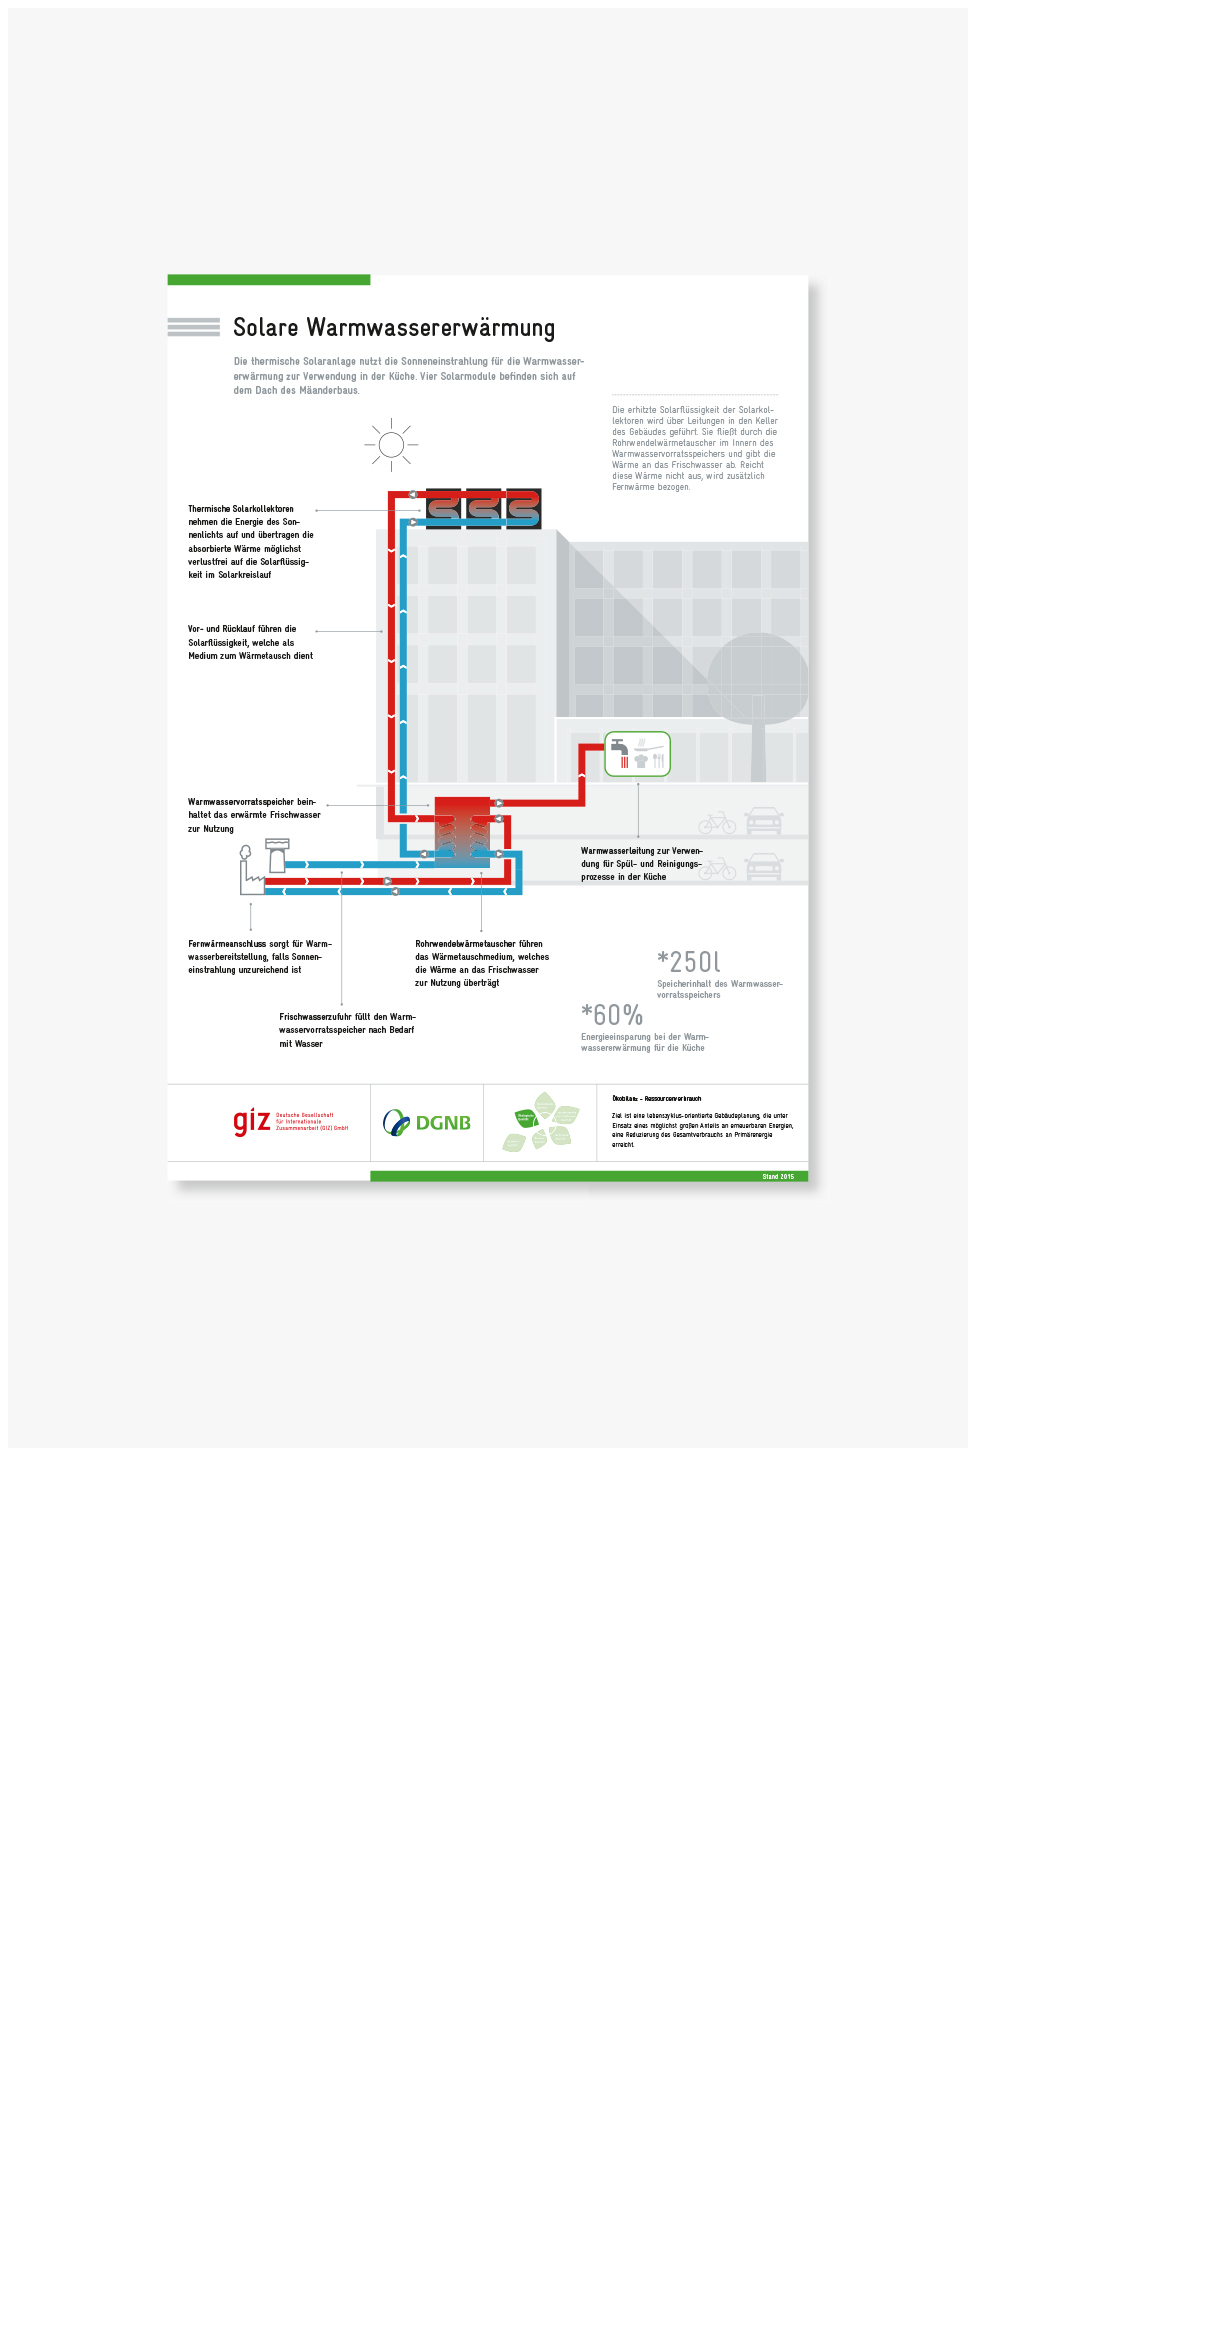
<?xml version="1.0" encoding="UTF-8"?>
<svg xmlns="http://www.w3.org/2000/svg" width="1226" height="2328">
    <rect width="100%" height="100%" fill="#FFFFFF"/>
    <image x="8" y="8" width="960" height="1440" href="img_01.png"/>
</svg>
